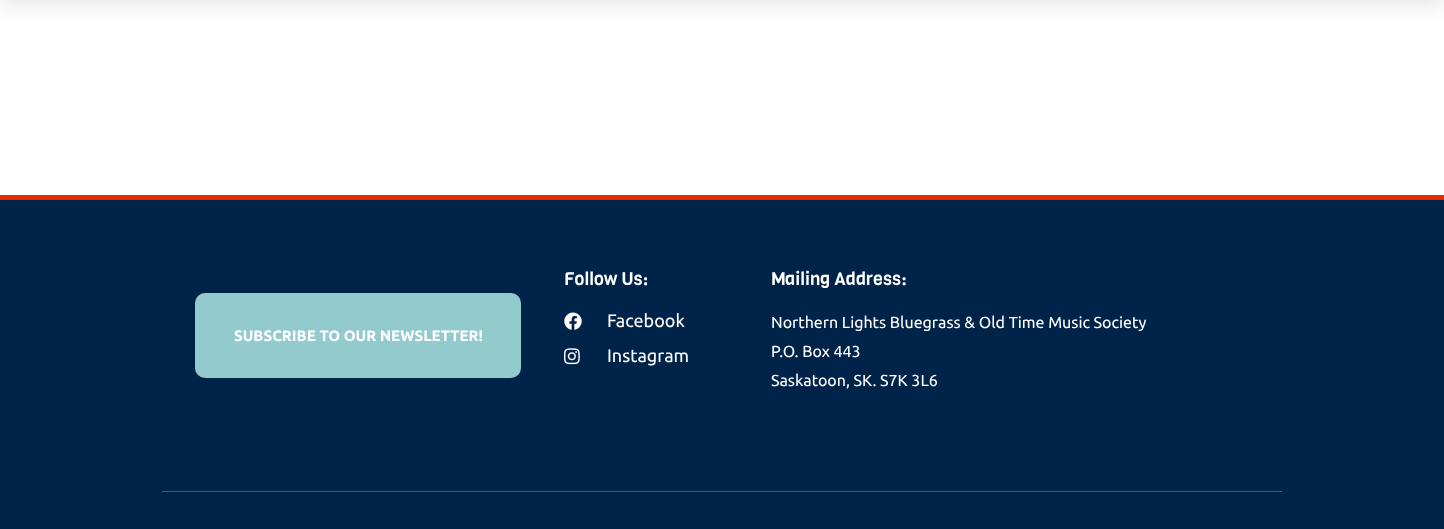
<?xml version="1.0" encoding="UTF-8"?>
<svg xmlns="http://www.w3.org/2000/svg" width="1444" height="529">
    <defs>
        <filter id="blur1" x="-50%" y="-200%" width="200%" height="500%"><feGaussianBlur stdDeviation="10"/></filter>
    </defs>
    <rect width="100%" height="100%" fill="#FFFFFF"/>
    <rect x="0" y="-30" width="1444" height="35" fill="#000000" fill-opacity="0.1" filter="url(#blur1)"/>
    <rect x="0" y="200" width="1444" height="329" fill="#002449"/>
    <rect x="0" y="195" width="1444" height="5" fill="#E82A00"/>
    <rect x="195" y="293" width="326" height="85" rx="10" fill="#92CACD"/>
    <text x="234" y="341" font-family="Ubuntu" font-size="15" font-weight="700" fill="#FFFFFF">SUBSCRIBE TO OUR NEWSLETTER!</text>
    <text x="564" y="285" font-family="Viga" font-size="18" fill="#FFFFFF">Follow Us:</text>
    <image x="564" y="312" width="18" height="18" href="img_01.png"/>
    <text x="607" y="327" font-family="Ubuntu" font-size="18" fill="#FFFFFF">Facebook</text>
    <image x="564" y="348" width="16" height="17" href="img_02.png"/>
    <text x="607" y="362" font-family="Ubuntu" font-size="18" fill="#FFFFFF">Instagram</text>
    <text x="771" y="285" font-family="Viga" font-size="18" fill="#FFFFFF">Mailing Address:</text>
    <text font-family="Ubuntu" font-size="16" fill="#FFFFFF">
        <tspan x="771" y="328">Northern Lights Bluegrass &amp; Old Time Music Society</tspan>
        <tspan x="771" y="357">P.O. Box 443</tspan>
        <tspan x="771" y="386">Saskatoon, SK. S7K 3L6</tspan>
    </text>
    <rect x="162" y="491" width="1120" height="1" fill="#405B77"/>
</svg>
